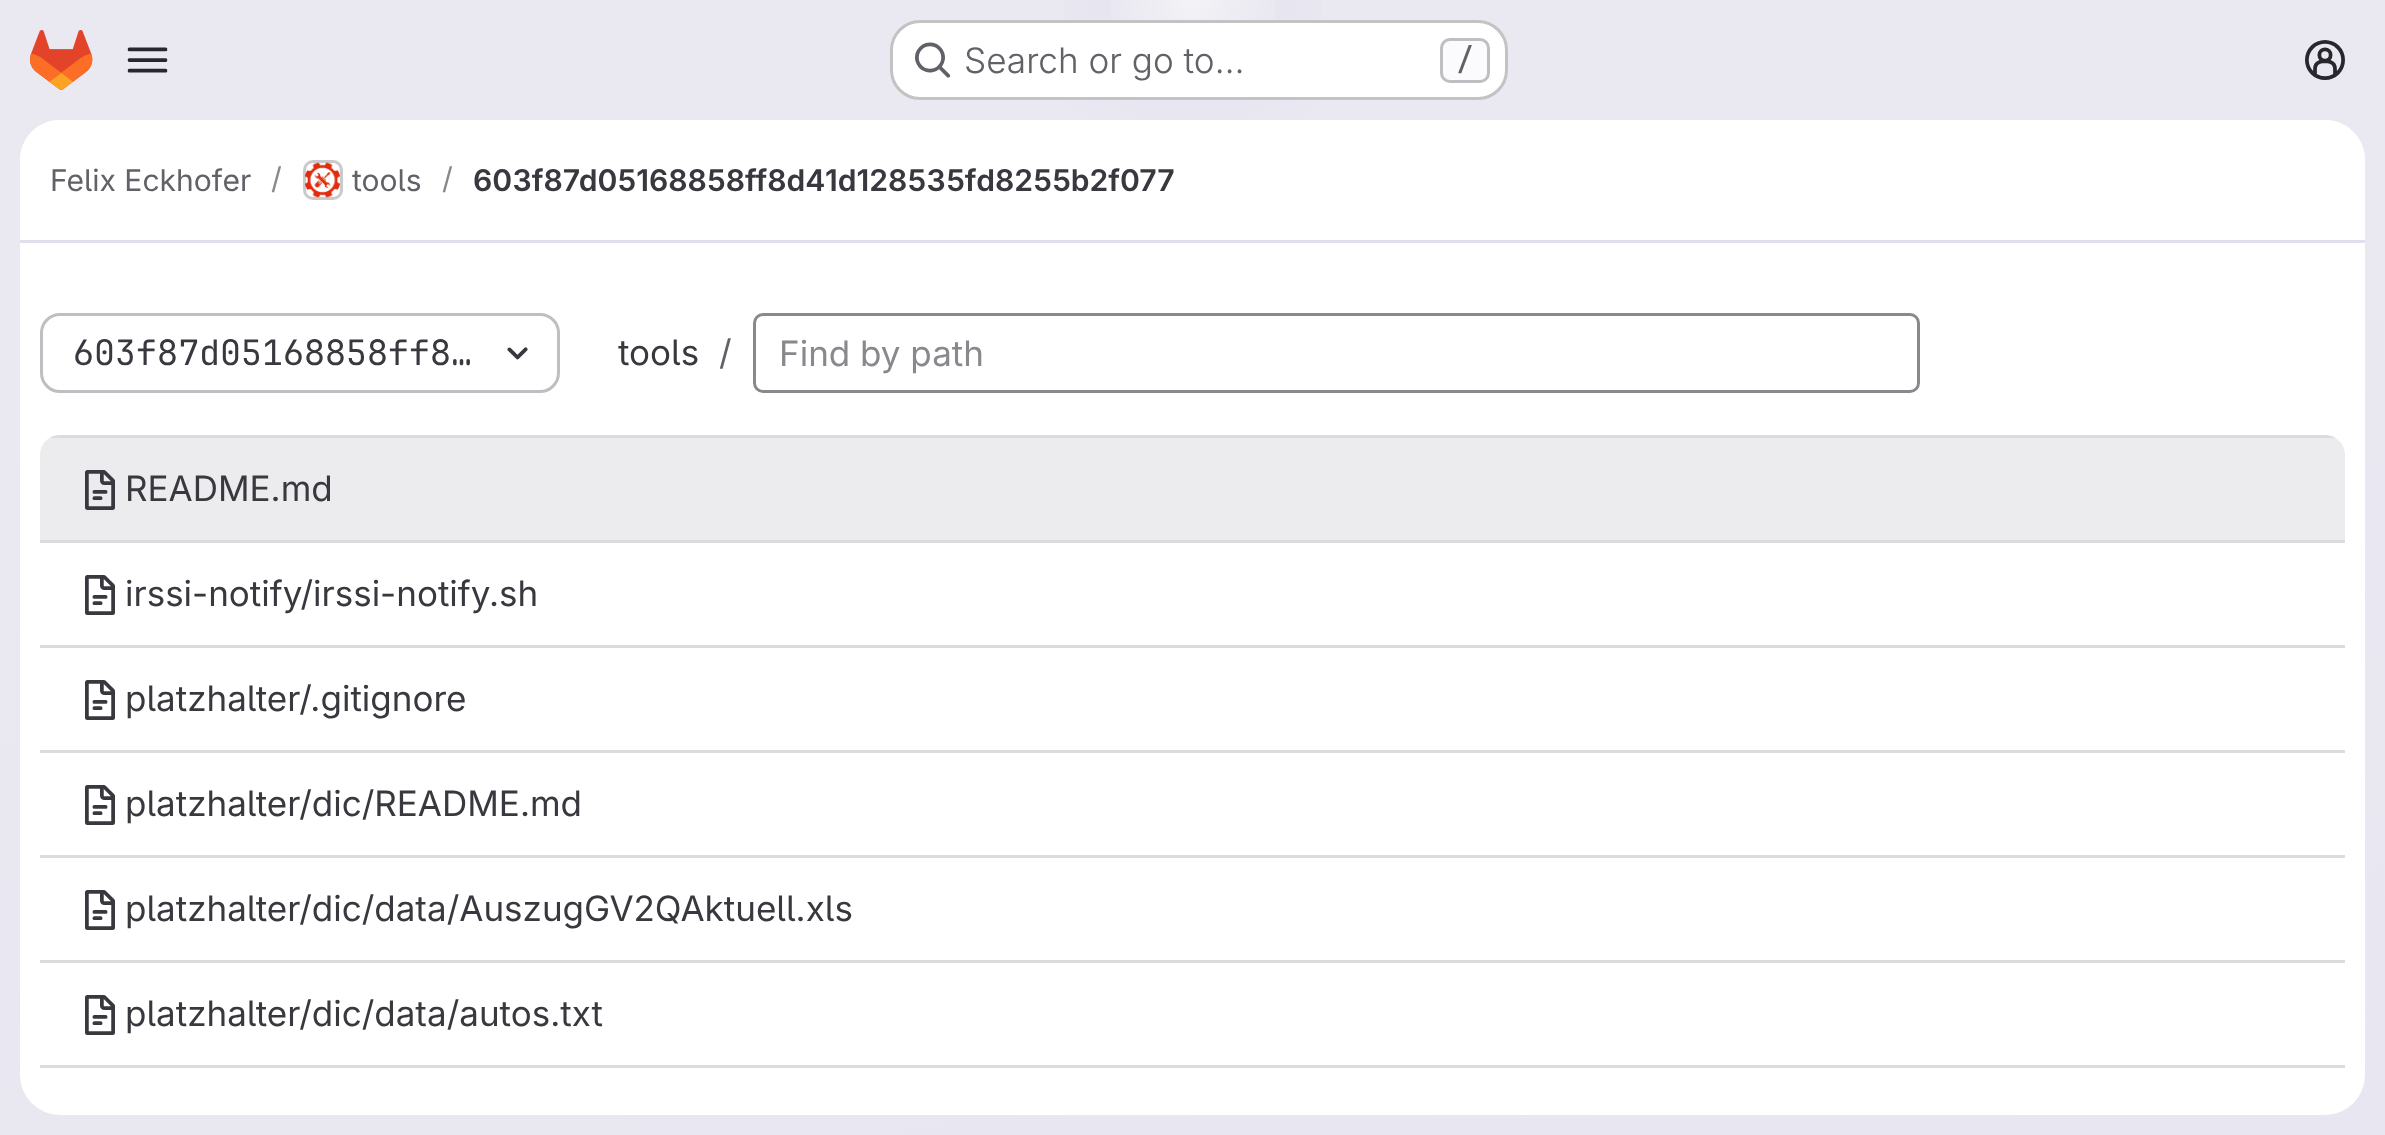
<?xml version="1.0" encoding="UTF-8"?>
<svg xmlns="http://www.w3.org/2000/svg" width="2385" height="1135">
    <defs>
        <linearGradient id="g1" gradientUnits="userSpaceOnUse" x1="1326" y1="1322" x2="1059" y2="-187"><stop offset="0" stop-color="#E8E6F0"/><stop offset="0.7" stop-color="#EAE9F2"/></linearGradient>
        <radialGradient id="g2" gradientUnits="userSpaceOnUse" cx="0" cy="0" r="1" gradientTransform="matrix(1193 0 0 1135 1193 0)"><stop offset="0" stop-color="#E4E2ED"/><stop offset="0.15" stop-color="#E4E2ED" stop-opacity="0"/></radialGradient>
        <radialGradient id="g3" gradientUnits="userSpaceOnUse" cx="0" cy="0" r="1" gradientTransform="matrix(1193 0 0 1135 1193 0)"><stop offset="0" stop-color="#E4E2EC"/><stop offset="0.1" stop-color="#E4E2EC" stop-opacity="0"/></radialGradient>
        <radialGradient id="g4" gradientUnits="userSpaceOnUse" cx="1193" cy="0" r="1646"><stop offset="0" stop-color="#FFFFFF" stop-opacity="0.6"/><stop offset="0.06" stop-color="#FFFFFF" stop-opacity="0"/></radialGradient>
        <clipPath id="clip1"><rect x="40" y="435" width="2305" height="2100" rx="20"/></clipPath>
    </defs>
    <rect width="100%" height="100%" fill="#FFFFFF"/>
    <rect x="0" y="0" width="2385" height="1135" fill="url(#g1)"/>
    <rect x="1064" y="0" width="258" height="120" fill="url(#g2)"/>
    <rect x="1152" y="0" width="84" height="40" fill="url(#g3)"/>
    <rect x="1111" y="0" width="164" height="20" fill="url(#g4)"/>
    <image x="30" y="30" width="63" height="60" href="img_01.png"/>
    <image x="127" y="47" width="41" height="26" href="img_02.png"/>
    <rect x="890" y="20" width="618" height="80" rx="30" fill="#FFFFFF"/>
    <rect x="891.5" y="21.5" width="615" height="77" rx="28.5" fill="none" stroke="#050506" stroke-opacity="0.24" stroke-width="3"/>
    <image x="915" y="42" width="36" height="36" href="img_03.png"/>
    <text x="964" y="73" font-family="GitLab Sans" font-size="35" font-weight="300" fill="#626168">Search or go to…</text>
    <rect x="1441.5" y="39.5" width="47" height="42" rx="8.5" fill="#FBFAFD" stroke="#BFBFC3" stroke-width="3"/>
    <text x="1456" y="70" font-family="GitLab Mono" font-size="30" font-weight="500" fill="#626168">/</text>
    <image x="2305" y="40" width="40" height="40" href="img_04.png"/>
    <rect x="20" y="120" width="2345" height="995" rx="40" fill="#FFFFFF"/>
    <path d="M 60 120 H 2325 C 2347 120 2365 138 2365 160 V 243 H 20 V 160 C 20 138 38 120 60 120 Z" fill="#FFFFFF"/>
    <rect x="20" y="240" width="2345" height="3" fill="#E1DFEC"/>
    <text x="50" y="191" font-family="GitLab Sans" font-size="30" fill="#626168">Felix Eckhofer</text>
    <text x="271" y="189" font-family="GitLab Sans" font-size="30" fill="#89888D">/</text>
    <rect x="304.5" y="161.5" width="37" height="37" rx="8.5" fill="none" stroke="#DCDCDE" stroke-width="3"/>
    <image x="305" y="162" width="35" height="36" href="img_05.png"/>
    <rect x="304.5" y="161.5" width="37" height="37" rx="8.5" fill="none" stroke="#050506" stroke-opacity="0.08" stroke-width="3"/>
    <text x="352" y="191" font-family="GitLab Sans" font-size="30" fill="#626168">tools</text>
    <text x="442" y="189" font-family="GitLab Sans" font-size="30" fill="#89888D">/</text>
    <text x="473" y="191" font-family="GitLab Sans" font-size="30" font-weight="600" fill="#3A383F">603f87d05168858ff8d41d128535fd8255b2f077</text>
    <rect x="41.5" y="314.5" width="517" height="77" rx="18.5" fill="none" stroke="#BFBFC3" stroke-width="3"/>
    <text x="73" y="365" font-family="GitLab Mono" font-size="35" fill="#3A383F">603f87d05168858ff8…</text>
    <image x="507" y="347" width="21" height="13" href="img_06.png"/>
    <text x="618" y="365" font-family="GitLab Sans" font-size="35" fill="#3A383F">tools</text>
    <text x="719" y="365" font-family="GitLab Sans" font-size="35" fill="#626168">/</text>
    <rect x="754.5" y="314.5" width="1164" height="77" rx="8.5" fill="none" stroke="#89888D" stroke-width="3"/>
    <text x="779" y="366" font-family="GitLab Sans" font-size="35" fill="#89888D">Find by path</text>
    <path d="M 60 435 H 2325 C 2336 435 2345 444 2345 455 V 540 H 40 V 455 C 40 444 49 435 60 435 Z" fill="#ECECEF"/>
    <g clip-path="url(#clip1)">
        <rect x="49" y="435" width="2287" height="3" fill="#DCDCDE"/>
    </g>
    <image x="85" y="470" width="30" height="40" href="img_07.png"/>
    <text x="125" y="501" font-family="GitLab Sans" font-size="35" fill="#3A383F">README.md</text>
    <rect x="40" y="540" width="2305" height="3" fill="#DCDCDE"/>
    <image x="85" y="575" width="30" height="40" href="img_08.png"/>
    <text x="125" y="606" font-family="GitLab Sans" font-size="35" fill="#3A383F">irssi-notify/irssi-notify.sh</text>
    <rect x="40" y="645" width="2305" height="3" fill="#DCDCDE"/>
    <image x="85" y="680" width="30" height="40" href="img_08.png"/>
    <text x="125" y="711" font-family="GitLab Sans" font-size="35" fill="#3A383F">platzhalter/.gitignore</text>
    <rect x="40" y="750" width="2305" height="3" fill="#DCDCDE"/>
    <image x="85" y="785" width="30" height="40" href="img_08.png"/>
    <text x="125" y="816" font-family="GitLab Sans" font-size="35" fill="#3A383F">platzhalter/dic/README.md</text>
    <rect x="40" y="855" width="2305" height="3" fill="#DCDCDE"/>
    <image x="85" y="890" width="30" height="40" href="img_08.png"/>
    <text x="125" y="921" font-family="GitLab Sans" font-size="35" fill="#3A383F">platzhalter/dic/data/AuszugGV2QAktuell.xls</text>
    <rect x="40" y="960" width="2305" height="3" fill="#DCDCDE"/>
    <image x="85" y="995" width="30" height="40" href="img_08.png"/>
    <text x="125" y="1026" font-family="GitLab Sans" font-size="35" fill="#3A383F">platzhalter/dic/data/autos.txt</text>
    <rect x="40" y="1065" width="2305" height="3" fill="#DCDCDE"/>
</svg>
